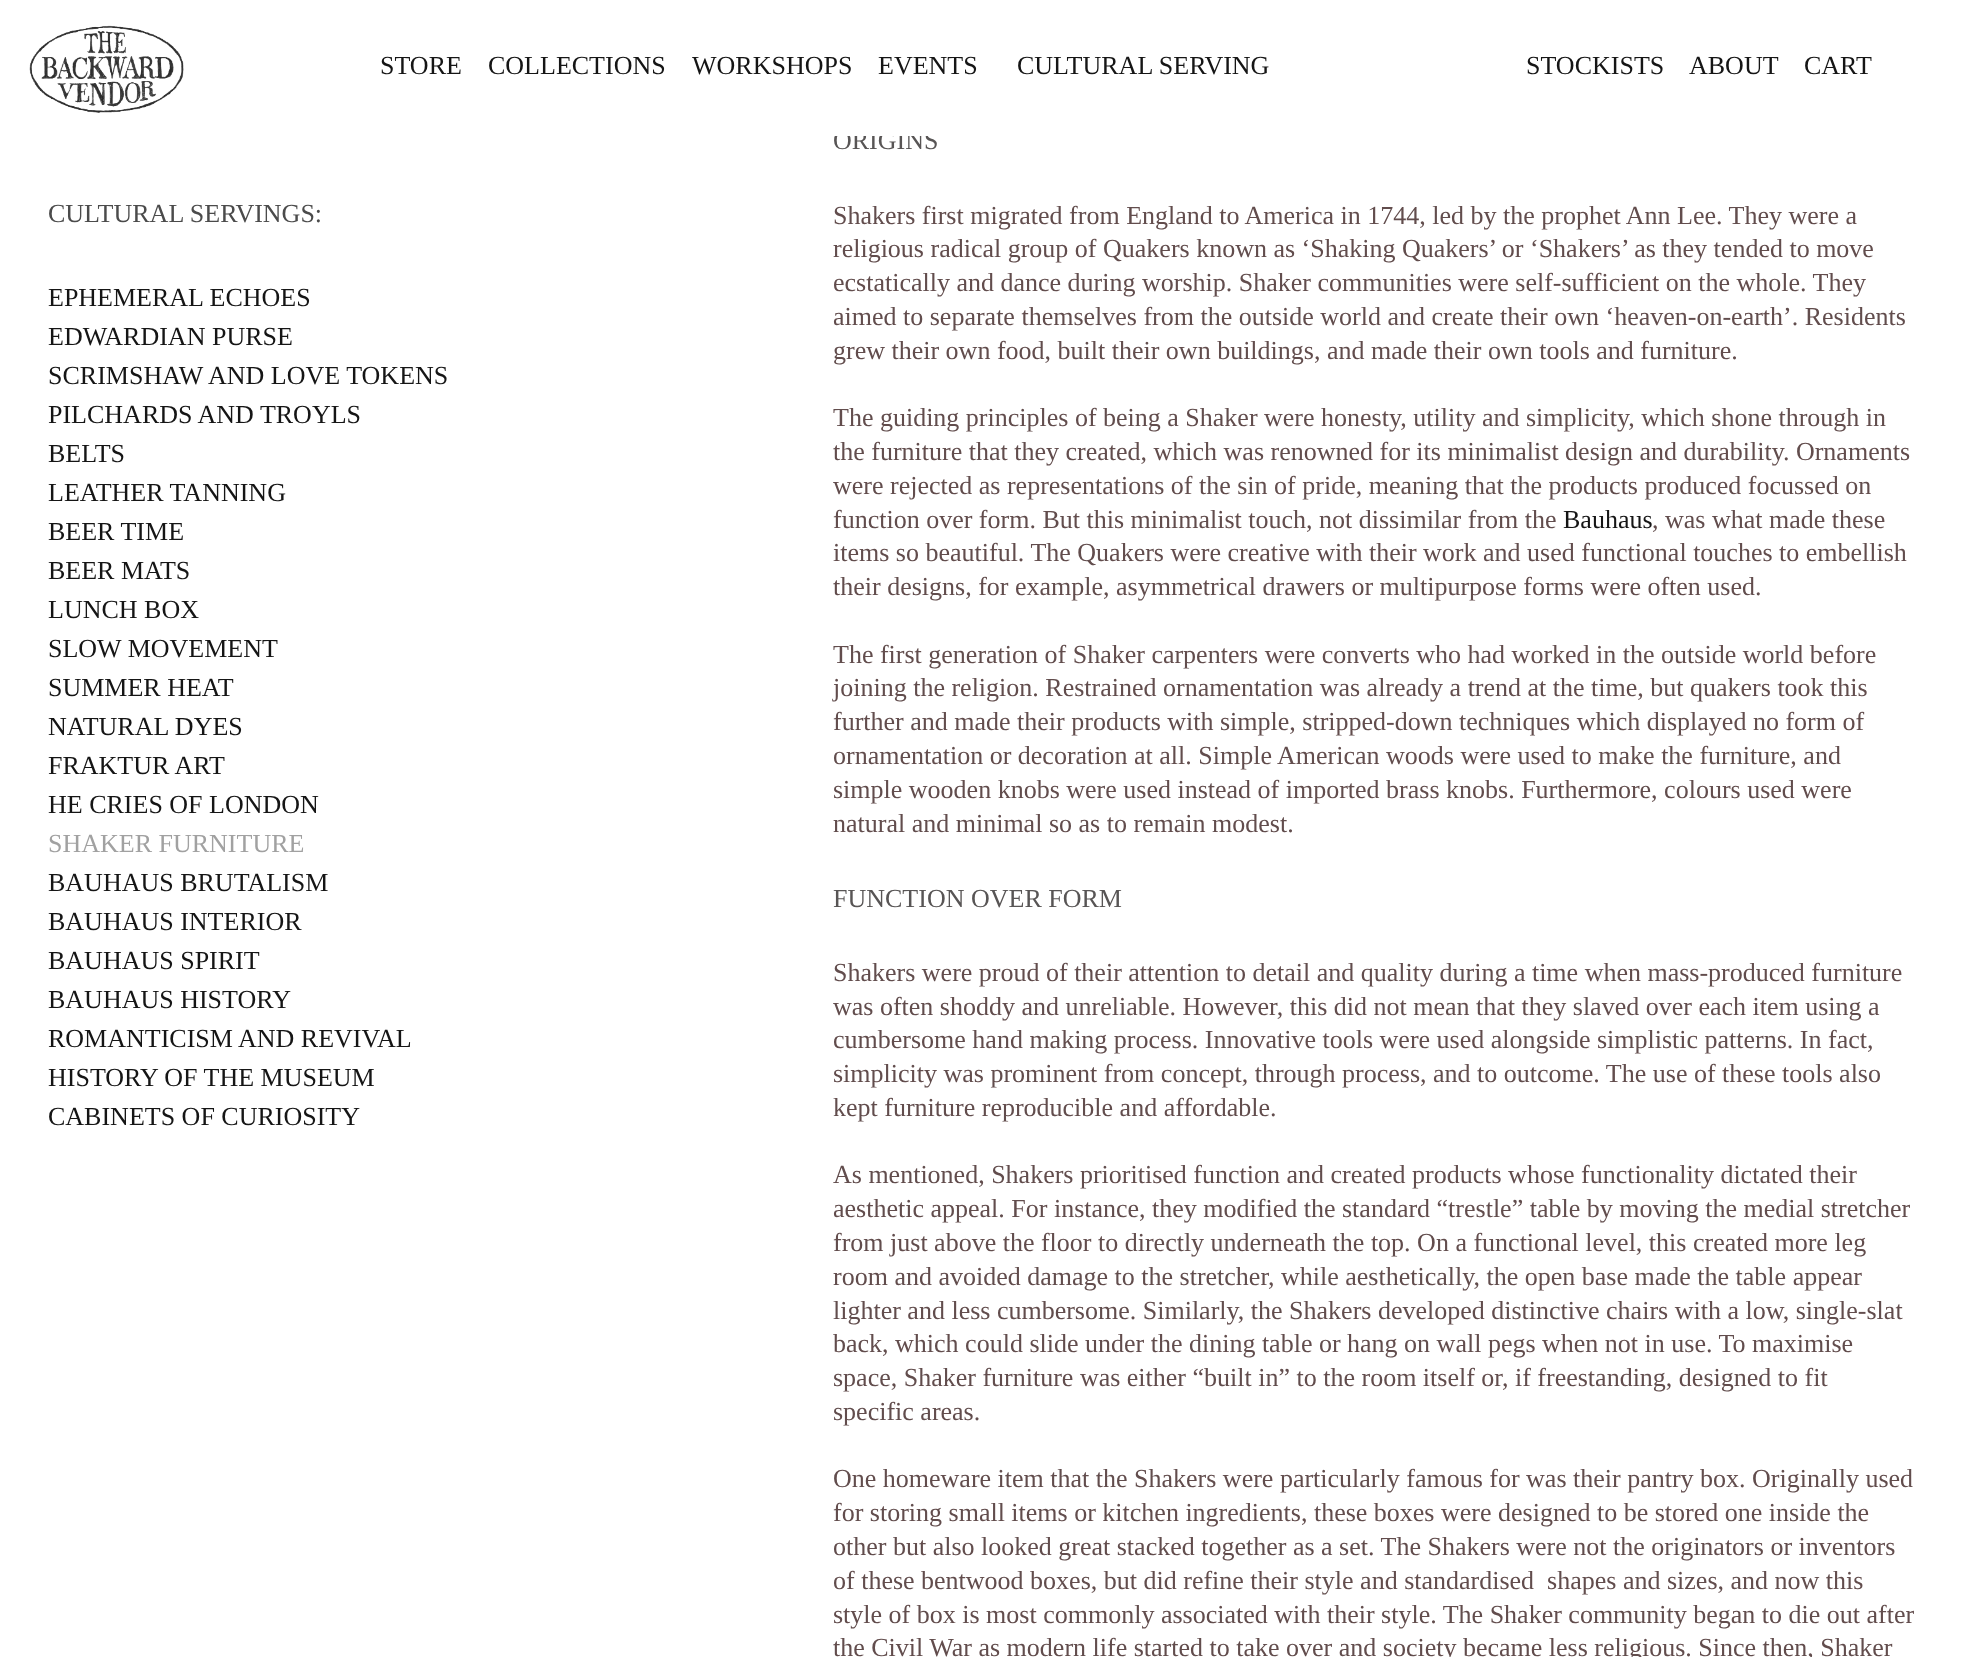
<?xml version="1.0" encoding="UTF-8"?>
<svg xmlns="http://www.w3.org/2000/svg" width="1962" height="1657">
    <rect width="100%" height="100%" fill="#FFFFFF"/>
    <image x="29" y="25" width="155" height="88" href="img_01.png"/>
    <text x="380" y="74" font-family="Liberation Serif" font-size="26" fill="#151515">STORE</text>
    <text x="488" y="74" font-family="Liberation Serif" font-size="26" fill="#151515">COLLECTIONS</text>
    <text x="692" y="74" font-family="Liberation Serif" font-size="26" fill="#151515">WORKSHOPS</text>
    <text x="878" y="74" font-family="Liberation Serif" font-size="26" fill="#151515">EVENTS</text>
    <text x="1017" y="74" font-family="Liberation Serif" font-size="26" fill="#151515">CULTURAL SERVING</text>
    <text x="1526" y="74" font-family="Liberation Serif" font-size="26" fill="#151515">STOCKISTS</text>
    <text x="1689" y="74" font-family="Liberation Serif" font-size="26" fill="#151515">ABOUT</text>
    <text x="1804" y="74" font-family="Liberation Serif" font-size="26" fill="#151515">CART</text>
    <text x="833" y="149" font-family="Liberation Serif" font-size="26" fill="#585555">ORIGINS</text>
    <rect x="834" y="131" width="102" height="5" fill="#FFFFFF"/>
    <text x="48" y="222" font-family="Liberation Serif" font-size="26" fill="#4B4B4B">CULTURAL SERVINGS:</text>
    <text font-family="Liberation Serif" font-size="26" fill="#151515">
        <tspan x="48" y="306">EPHEMERAL ECHOES</tspan>
        <tspan x="48" y="345">EDWARDIAN PURSE</tspan>
        <tspan x="48" y="384">SCRIMSHAW AND LOVE TOKENS</tspan>
        <tspan x="48" y="423">PILCHARDS AND TROYLS</tspan>
        <tspan x="48" y="462">BELTS</tspan>
        <tspan x="48" y="501">LEATHER TANNING</tspan>
        <tspan x="48" y="540">BEER TIME</tspan>
        <tspan x="48" y="579">BEER MATS</tspan>
        <tspan x="48" y="618">LUNCH BOX</tspan>
        <tspan x="48" y="657">SLOW MOVEMENT</tspan>
        <tspan x="48" y="696">SUMMER HEAT</tspan>
        <tspan x="48" y="735">NATURAL DYES</tspan>
        <tspan x="48" y="774">FRAKTUR ART</tspan>
        <tspan x="48" y="813">HE CRIES OF LONDON</tspan>
    </text>
    <text x="48" y="852" font-family="Liberation Serif" font-size="26" fill="#A1A1A1">SHAKER FURNITURE</text>
    <text font-family="Liberation Serif" font-size="26" fill="#151515">
        <tspan x="48" y="891">BAUHAUS BRUTALISM</tspan>
        <tspan x="48" y="930">BAUHAUS INTERIOR</tspan>
        <tspan x="48" y="969">BAUHAUS SPIRIT</tspan>
        <tspan x="48" y="1008">BAUHAUS HISTORY</tspan>
        <tspan x="48" y="1047">ROMANTICISM AND REVIVAL</tspan>
        <tspan x="48" y="1086">HISTORY OF THE MUSEUM</tspan>
        <tspan x="48" y="1125">CABINETS OF CURIOSITY</tspan>
    </text>
    <text font-family="Liberation Serif" font-size="26" fill="#624D4D">
        <tspan x="833" y="224">Shakers first migrated from England to America in 1744, led by the prophet Ann Lee. They were a</tspan>
        <tspan x="833" y="257">religious radical group of Quakers known as ‘Shaking Quakers’ or ‘Shakers’ as they tended to move</tspan>
        <tspan x="833" y="291">ecstatically and dance during worship. Shaker communities were self-sufficient on the whole. They</tspan>
        <tspan x="833" y="325">aimed to separate themselves from the outside world and create their own ‘heaven-on-earth’. Residents</tspan>
        <tspan x="833" y="359">grew their own food, built their own buildings, and made their own tools and furniture.</tspan>
    </text>
    <text font-family="Liberation Serif" font-size="26" fill="#624D4D">
        <tspan x="833" y="426">The guiding principles of being a Shaker were honesty, utility and simplicity, which shone through in</tspan>
        <tspan x="833" y="460">the furniture that they created, which was renowned for its minimalist design and durability. Ornaments</tspan>
        <tspan x="833" y="494">were rejected as representations of the sin of pride, meaning that the products produced focussed on</tspan>
        <tspan x="833" y="528">function over form. But this minimalist touch, not dissimilar from the</tspan>
    </text>
    <text x="1563" y="528" font-family="Liberation Serif" font-size="26" fill="#151515">Bauhaus</text>
    <text x="1652" y="528" font-family="Liberation Serif" font-size="26" fill="#624D4D">, was what made these</text>
    <text font-family="Liberation Serif" font-size="26" fill="#624D4D">
        <tspan x="833" y="561">items so beautiful. The Quakers were creative with their work and used functional touches to embellish</tspan>
        <tspan x="833" y="595">their designs, for example, asymmetrical drawers or multipurpose forms were often used.</tspan>
    </text>
    <text font-family="Liberation Serif" font-size="26" fill="#624D4D">
        <tspan x="833" y="663">The first generation of Shaker carpenters were converts who had worked in the outside world before</tspan>
        <tspan x="833" y="696">joining the religion. Restrained ornamentation was already a trend at the time, but quakers took this</tspan>
        <tspan x="833" y="730">further and made their products with simple, stripped-down techniques which displayed no form of</tspan>
        <tspan x="833" y="764">ornamentation or decoration at all. Simple American woods were used to make the furniture, and</tspan>
        <tspan x="833" y="798">simple wooden knobs were used instead of imported brass knobs. Furthermore, colours used were</tspan>
        <tspan x="833" y="832">natural and minimal so as to remain modest.</tspan>
    </text>
    <text x="833" y="907" font-family="Liberation Serif" font-size="26" fill="#585555">FUNCTION OVER FORM</text>
    <text font-family="Liberation Serif" font-size="26" fill="#624D4D">
        <tspan x="833" y="981">Shakers were proud of their attention to detail and quality during a time when mass-produced furniture</tspan>
        <tspan x="833" y="1015">was often shoddy and unreliable. However, this did not mean that they slaved over each item using a</tspan>
        <tspan x="833" y="1048">cumbersome hand making process. Innovative tools were used alongside simplistic patterns. In fact,</tspan>
        <tspan x="833" y="1082">simplicity was prominent from concept, through process, and to outcome. The use of these tools also</tspan>
        <tspan x="833" y="1116">kept furniture reproducible and affordable.</tspan>
    </text>
    <text font-family="Liberation Serif" font-size="26" fill="#624D4D">
        <tspan x="833" y="1183">As mentioned, Shakers prioritised function and created products whose functionality dictated their</tspan>
        <tspan x="833" y="1217">aesthetic appeal. For instance, they modified the standard “trestle” table by moving the medial stretcher</tspan>
        <tspan x="833" y="1251">from just above the floor to directly underneath the top. On a functional level, this created more leg</tspan>
        <tspan x="833" y="1285">room and avoided damage to the stretcher, while aesthetically, the open base made the table appear</tspan>
        <tspan x="833" y="1319">lighter and less cumbersome. Similarly, the Shakers developed distinctive chairs with a low, single-slat</tspan>
        <tspan x="833" y="1352">back, which could slide under the dining table or hang on wall pegs when not in use. To maximise</tspan>
        <tspan x="833" y="1386">space, Shaker furniture was either “built in” to the room itself or, if freestanding, designed to fit</tspan>
        <tspan x="833" y="1420">specific areas.</tspan>
    </text>
    <text font-family="Liberation Serif" font-size="26" fill="#624D4D" xml:space="preserve"><tspan x="833" y="1487">One homeware item that the Shakers were particularly famous for was their pantry box. Originally used</tspan><tspan x="833" y="1521">for storing small items or kitchen ingredients, these boxes were designed to be stored one inside the</tspan><tspan x="833" y="1555">other but also looked great stacked together as a set. The Shakers were not the originators or inventors</tspan><tspan x="833" y="1589">of these bentwood boxes, but did refine their style and standardised  shapes and sizes, and now this</tspan><tspan x="833" y="1623">style of box is most commonly associated with their style. The Shaker community began to die out after</tspan><tspan x="833" y="1656">the Civil War as modern life started to take over and society became less religious. Since then, Shaker</tspan></text>
</svg>
